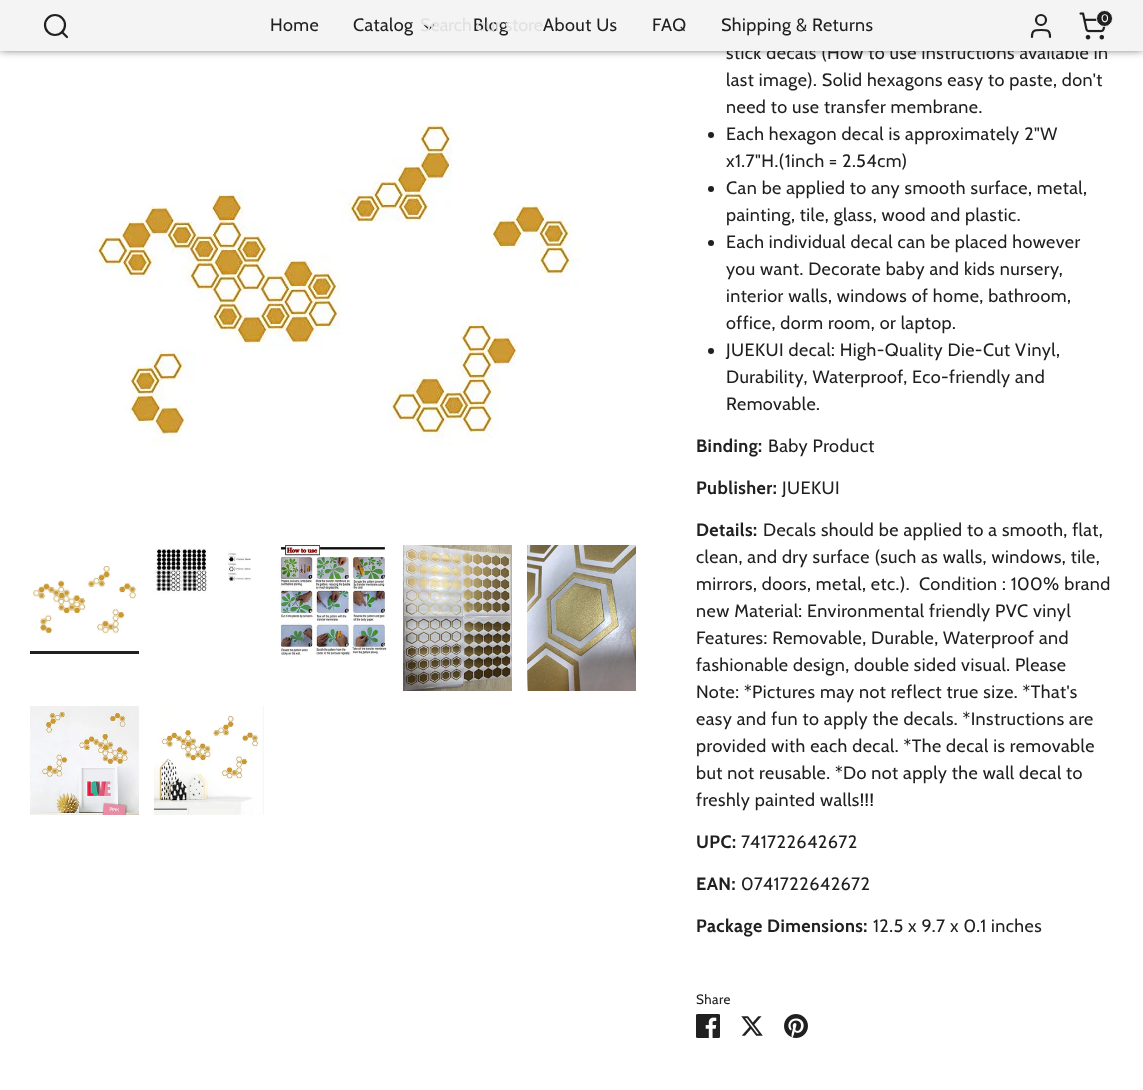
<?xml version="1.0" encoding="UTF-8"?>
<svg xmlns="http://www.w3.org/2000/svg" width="1143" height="1090">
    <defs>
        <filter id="blur1" x="-50%" y="-200%" width="200%" height="500%"><feGaussianBlur stdDeviation="5"/></filter>
    </defs>
    <rect width="100%" height="100%" fill="#FFFFFF"/>
    <rect x="0" y="-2" width="1143" height="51" fill="#000000" fill-opacity="0.75" filter="url(#blur1)"/>
    <text x="726" y="59" font-family="Cabin" font-size="18" letter-spacing="0.45" fill="#202020">stick decals (How to use instructions available in</text>
    <rect x="0" y="0" width="1143" height="51" fill="#F4F4F4"/>
    <circle cx="55" cy="25" r="10" fill="none" stroke="#202020" stroke-width="2.2"/>
    <path d="M 67 37 L 62 32" fill="none" stroke="#202020" stroke-width="2.2" stroke-linecap="round" stroke-linejoin="round"/>
    <path d="M 424.5 25 L 429 29 L 433.5 25" fill="none" stroke="#202020" stroke-width="1.5" stroke-linecap="round"/>
    <text x="473" y="31" font-family="Cabin" font-size="18" letter-spacing="0.45" fill="#202020">Blog</text>
    <text x="543" y="31" font-family="Cabin" font-size="18" letter-spacing="0.45" fill="#202020">About Us</text>
    <text x="420" y="31" font-family="Cabin" font-size="18" fill="#E1E1E1">Search our store</text>
    <text x="353" y="31" font-family="Cabin" font-size="18" letter-spacing="0.45" fill="#202020">Catalog</text>
    <path d="M 402 37 L 397 32" fill="none" stroke="#F4F4F4" stroke-width="2.2" stroke-linecap="round" stroke-linejoin="round"/>
    <path d="M 1050 37 C 1050 30 1047.5 30 1041 30 C 1034.5 30 1032 30 1032 37" fill="none" stroke="#202020" stroke-width="2.2" stroke-linecap="round" stroke-linejoin="round"/>
    <circle cx="1041" cy="20" r="5" fill="none" stroke="#202020" stroke-width="2.2"/>
    <image x="1079" y="12" width="27" height="28" href="img_01.png"/>
    <circle cx="1104.5" cy="18.5" r="8" fill="#202020" stroke="#F4F4F4"/>
    <text x="1101" y="22" font-family="Cabin" font-size="11" fill="#F4F4F4">0</text>
    <text x="270" y="31" font-family="Cabin" font-size="18" letter-spacing="0.45" fill="#202020">Home</text>
    <text x="652" y="31" font-family="Cabin" font-size="18" letter-spacing="0.45" fill="#202020">FAQ</text>
    <text x="721" y="31" font-family="Cabin" font-size="18" letter-spacing="0.45" fill="#202020">Shipping &amp; Returns</text>
    <image x="92" y="125" width="488" height="321" href="img_02.png"/>
    <image x="32" y="565" width="106" height="71" href="img_03.png"/>
    <rect x="30" y="651" width="109" height="3" fill="#202020"/>
    <image x="154" y="548" width="97" height="46" href="img_04.png"/>
    <image x="279" y="545" width="108" height="112" href="img_05.png"/>
    <image x="403" y="545" width="109" height="146" href="img_06.png"/>
    <image x="527" y="545" width="109" height="146" href="img_07.png"/>
    <image x="30" y="706" width="109" height="109" href="img_08.png"/>
    <image x="154" y="706" width="110" height="109" href="img_09.png"/>
    <text font-family="Cabin" font-size="18" letter-spacing="0.45" fill="#202020">
        <tspan x="726" y="86">last image). Solid hexagons easy to paste, don't</tspan>
        <tspan x="726" y="113">need to use transfer membrane.</tspan>
    </text>
    <circle cx="711" cy="135" r="3" fill="#202020"/>
    <text font-family="Cabin" font-size="18" letter-spacing="0.45" fill="#202020">
        <tspan x="726" y="140">Each hexagon decal is approximately 2"W</tspan>
        <tspan x="726" y="167">x1.7"H.(1inch = 2.54cm)</tspan>
    </text>
    <circle cx="711" cy="189" r="3" fill="#202020"/>
    <text font-family="Cabin" font-size="18" letter-spacing="0.45" fill="#202020">
        <tspan x="726" y="194">Can be applied to any smooth surface, metal,</tspan>
        <tspan x="726" y="221">painting, tile, glass, wood and plastic.</tspan>
    </text>
    <circle cx="711" cy="243" r="3" fill="#202020"/>
    <text font-family="Cabin" font-size="18" letter-spacing="0.45" fill="#202020">
        <tspan x="726" y="248">Each individual decal can be placed however</tspan>
        <tspan x="726" y="275">you want. Decorate baby and kids nursery,</tspan>
        <tspan x="726" y="302">interior walls, windows of home, bathroom,</tspan>
        <tspan x="726" y="329">office, dorm room, or laptop.</tspan>
    </text>
    <circle cx="711" cy="351" r="3" fill="#202020"/>
    <text font-family="Cabin" font-size="18" letter-spacing="0.45" fill="#202020">
        <tspan x="726" y="356">JUEKUI decal: High-Quality Die-Cut Vinyl,</tspan>
        <tspan x="726" y="383">Durability, Waterproof, Eco-friendly and</tspan>
        <tspan x="726" y="410">Removable.</tspan>
    </text>
    <text x="696" y="452" font-family="Cabin" font-size="18" font-weight="700" letter-spacing="0.45" fill="#202020">Binding:</text>
    <text x="768" y="452" font-family="Cabin" font-size="18" letter-spacing="0.45" fill="#202020">Baby Product</text>
    <text x="696" y="494" font-family="Cabin" font-size="18" font-weight="700" letter-spacing="0.45" fill="#202020">Publisher:</text>
    <text x="782" y="494" font-family="Cabin" font-size="18" letter-spacing="0.45" fill="#202020">JUEKUI</text>
    <text x="696" y="536" font-family="Cabin" font-size="18" font-weight="700" letter-spacing="0.45" fill="#202020">Details:</text>
    <text x="763" y="536" font-family="Cabin" font-size="18" letter-spacing="0.45" fill="#202020">Decals should be applied to a smooth, flat,</text>
    <text font-family="Cabin" font-size="18" letter-spacing="0.45" fill="#202020" xml:space="preserve"><tspan x="696" y="563">clean, and dry surface (such as walls, windows, tile,</tspan><tspan x="696" y="590">mirrors, doors, metal, etc.).  Condition : 100% brand</tspan><tspan x="696" y="617">new Material: Environmental friendly PVC vinyl</tspan><tspan x="696" y="644">Features: Removable, Durable, Waterproof and</tspan><tspan x="696" y="671">fashionable design, double sided visual. Please</tspan><tspan x="696" y="698">Note: *Pictures may not reflect true size. *That's</tspan><tspan x="696" y="725">easy and fun to apply the decals. *Instructions are</tspan><tspan x="696" y="752">provided with each decal. *The decal is removable</tspan><tspan x="696" y="779">but not reusable. *Do not apply the wall decal to</tspan><tspan x="696" y="806">freshly painted walls!!!</tspan></text>
    <text x="696" y="848" font-family="Cabin" font-size="18" font-weight="700" letter-spacing="0.45" fill="#202020">UPC:</text>
    <text x="741" y="848" font-family="Cabin" font-size="18" letter-spacing="0.45" fill="#202020">741722642672</text>
    <text x="696" y="890" font-family="Cabin" font-size="18" font-weight="700" letter-spacing="0.45" fill="#202020">EAN:</text>
    <text x="741" y="890" font-family="Cabin" font-size="18" letter-spacing="0.45" fill="#202020">0741722642672</text>
    <text x="696" y="932" font-family="Cabin" font-size="18" font-weight="700" letter-spacing="0.45" fill="#202020">Package Dimensions:</text>
    <text x="873" y="932" font-family="Cabin" font-size="18" letter-spacing="0.45" fill="#202020">12.5 x 9.7 x 0.1 inches</text>
    <text x="696" y="1004" font-family="Cabin" font-size="13.5" letter-spacing="0.45" fill="#202020">Share</text>
    <image x="696" y="1014" width="24" height="24" href="img_10.png"/>
    <image x="741" y="1016" width="22" height="20" href="img_11.png"/>
    <image x="784" y="1014" width="24" height="24" href="img_12.png"/>
</svg>
